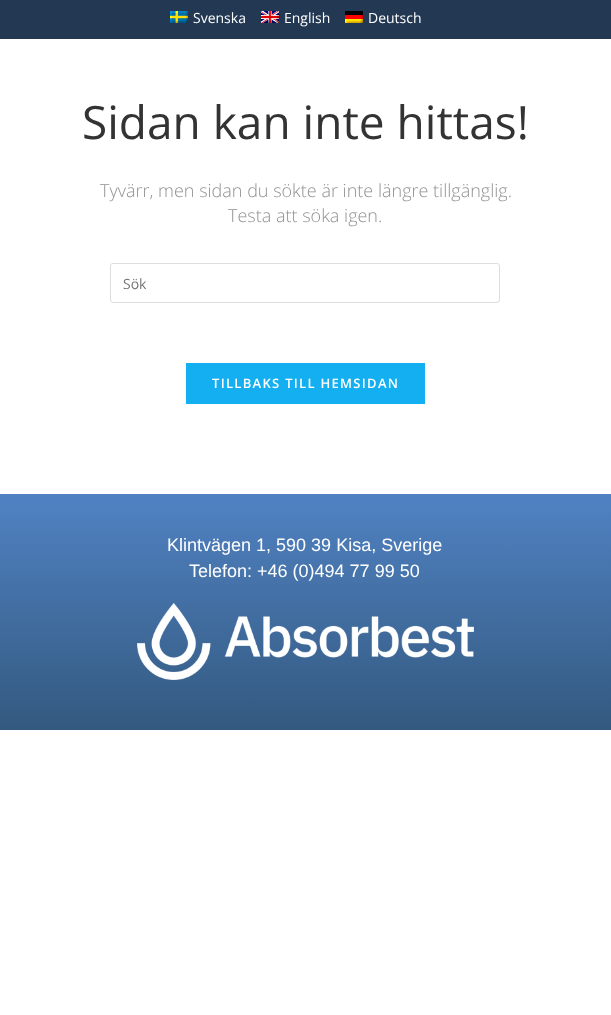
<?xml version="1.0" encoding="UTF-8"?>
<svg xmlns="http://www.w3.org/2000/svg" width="611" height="1015">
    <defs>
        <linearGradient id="g1" gradientUnits="userSpaceOnUse" x1="306" y1="494" x2="306" y2="730"><stop offset="0" stop-color="#5082C3"/><stop offset="1" stop-color="#33597F"/></linearGradient>
    </defs>
    <rect width="100%" height="100%" fill="#FFFFFF"/>
    <rect x="0" y="0" width="611" height="39" fill="#233853"/>
    <image x="170" y="11" width="18" height="12" href="img_01.png"/>
    <text x="193" y="23" font-family="Open Sans" font-size="14" fill="#FFFFFF">Svenska</text>
    <image x="261" y="11" width="18" height="12" href="img_02.png"/>
    <text x="284" y="23" font-family="Open Sans" font-size="14" fill="#FFFFFF">English</text>
    <image x="345" y="11" width="18" height="12" href="img_03.png"/>
    <text x="368" y="23" font-family="Open Sans" font-size="14" fill="#FFFFFF">Deutsch</text>
    <text x="82" y="139" font-family="Open Sans" font-size="46" fill="#333333">Sidan kan inte hittas!</text>
    <text x="100" y="197" font-family="Open Sans" font-size="18" font-weight="300" fill="#929292">Tyvärr, men sidan du sökte är inte längre tillgänglig.</text>
    <text x="228" y="222" font-family="Open Sans" font-size="18" font-weight="300" fill="#929292">Testa att söka igen.</text>
    <rect x="110.5" y="263.5" width="389" height="39" rx="2.5" fill="none" stroke="#DDDDDD"/>
    <text x="123" y="289" font-family="Open Sans" font-size="14" fill="#757575">Sök</text>
    <rect x="186" y="363" width="239" height="41" fill="#13AFF0"/>
    <text x="212" y="388" font-family="Open Sans" font-size="13" font-weight="600" letter-spacing="1.3" fill="#FFFFFF">TILLBAKS TILL HEMSIDAN</text>
    <rect x="0" y="494" width="611" height="236" fill="url(#g1)"/>
    <text x="167" y="551" font-family="Liberation Sans" font-size="18" fill="#FFFFFF">Klintvägen 1, 590 39 Kisa, Sverige</text>
    <text x="189" y="577" font-family="Liberation Sans" font-size="18" fill="#FFFFFF">Telefon: +46 (0)494 77 99 50</text>
    <image x="137" y="603" width="337" height="77" href="img_04.png"/>
</svg>
